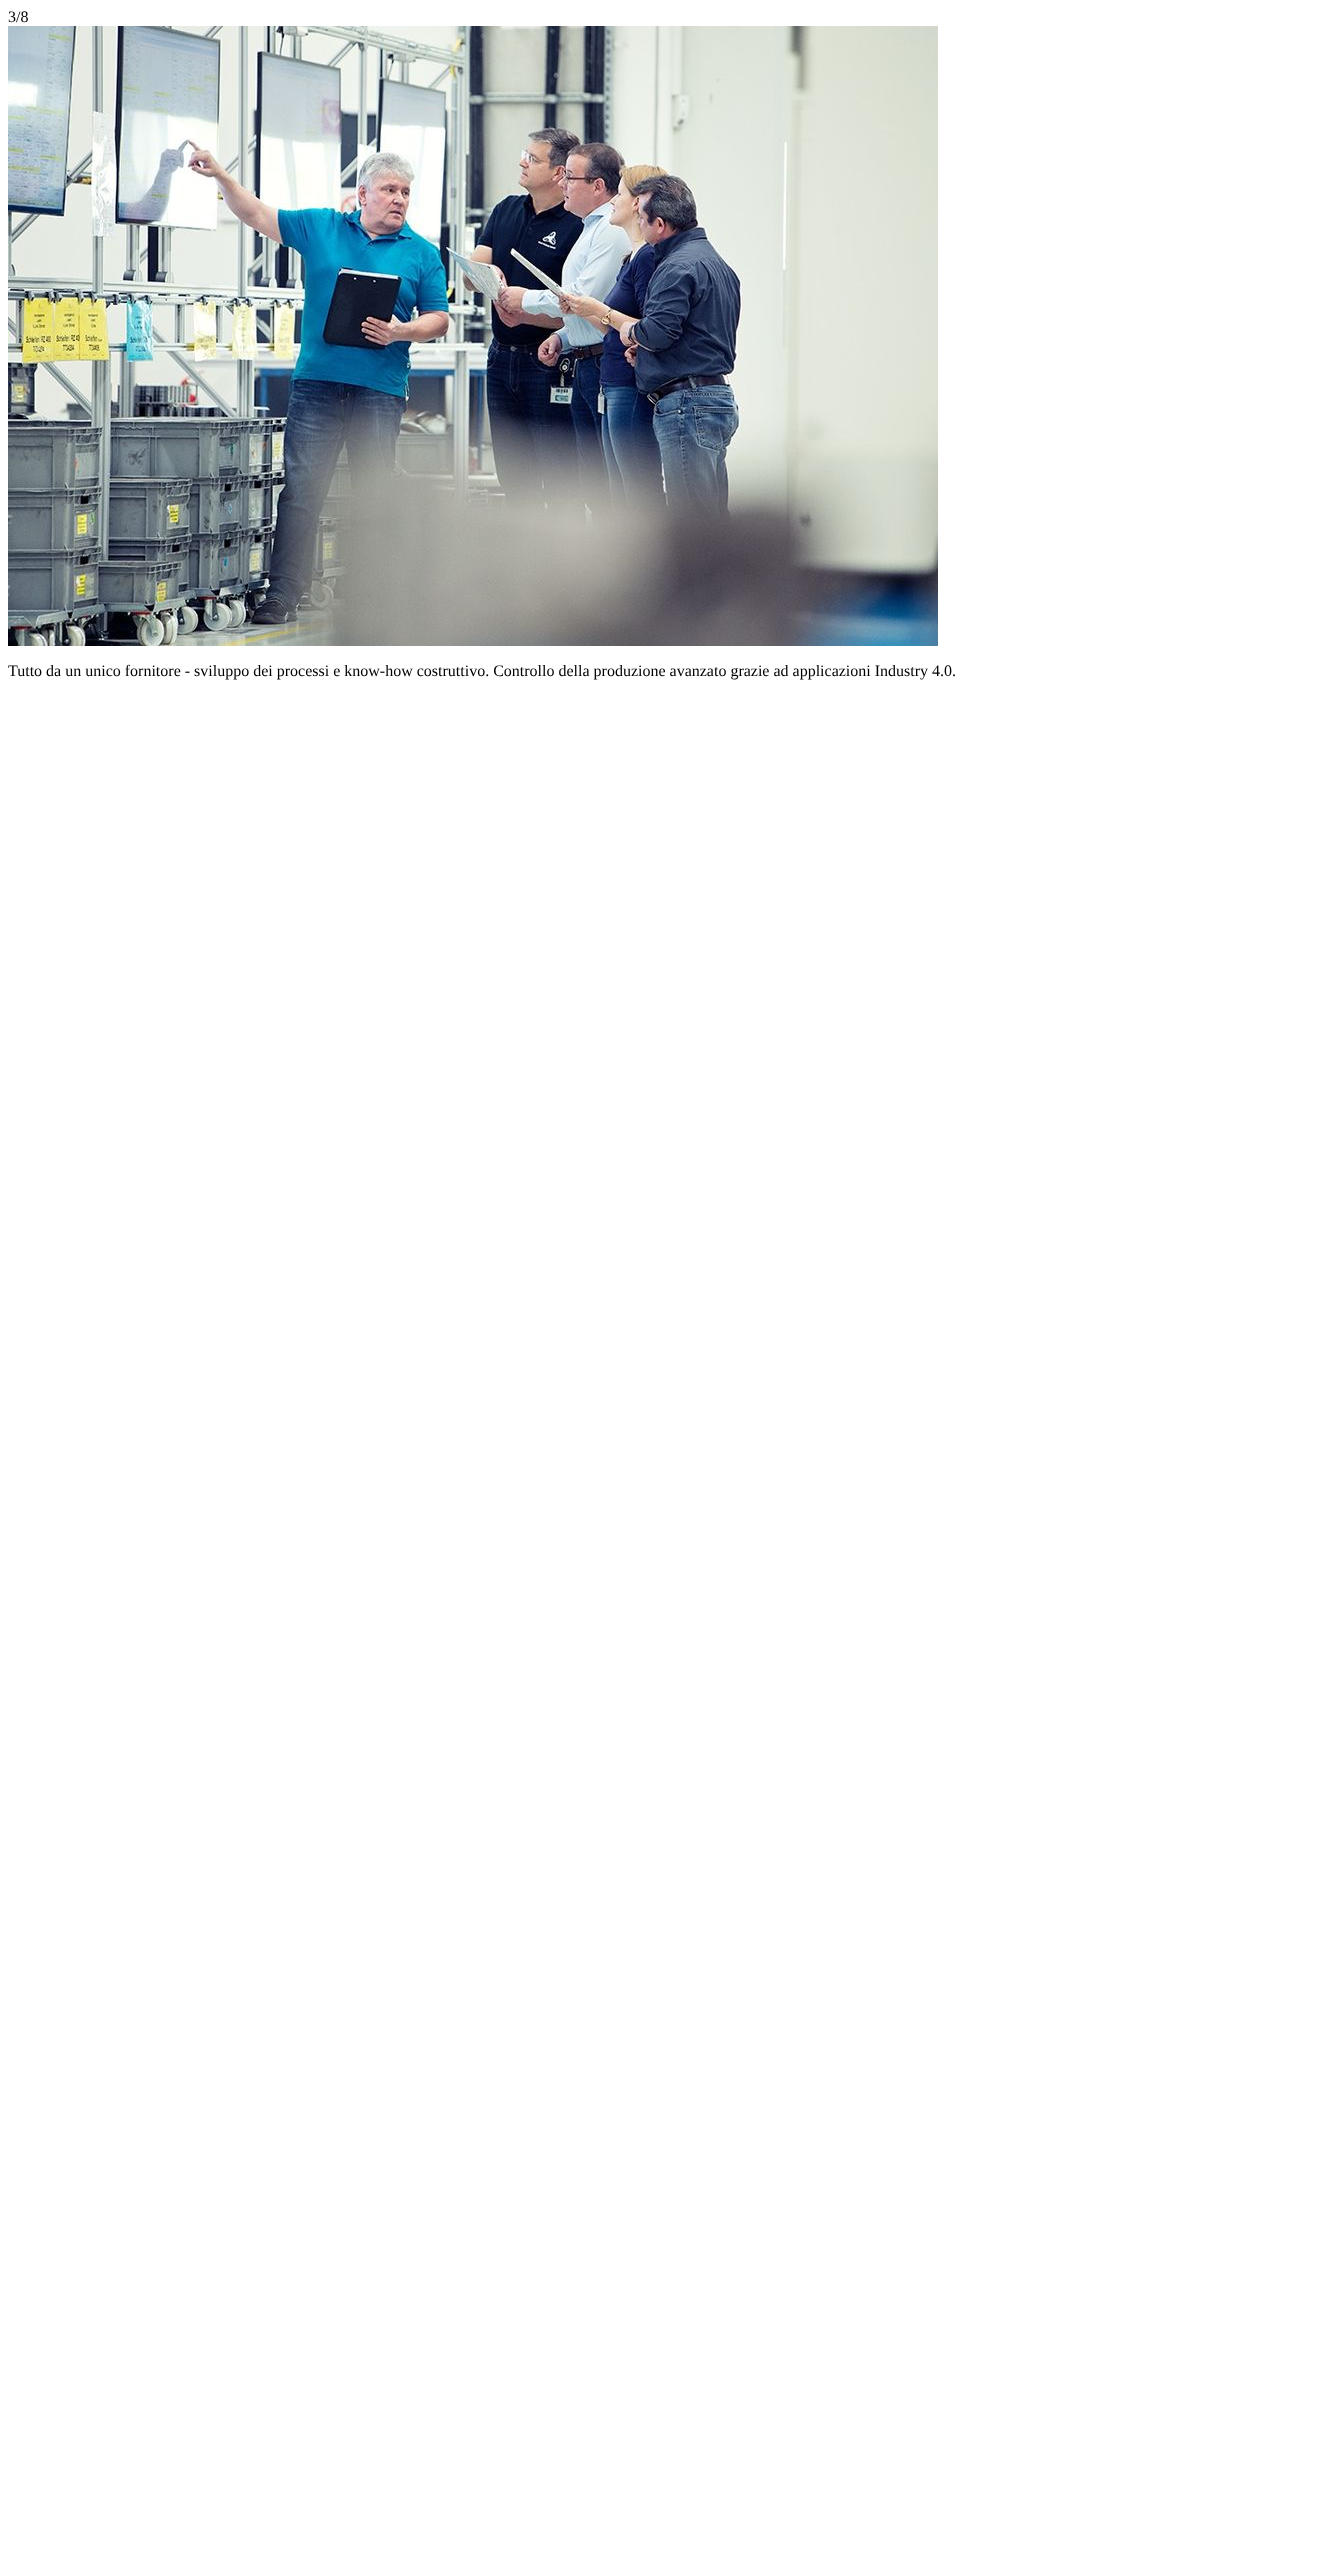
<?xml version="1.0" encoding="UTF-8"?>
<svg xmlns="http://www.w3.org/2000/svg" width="1328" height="2569">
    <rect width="100%" height="100%" fill="#FFFFFF"/>
    <text x="8" y="22" font-family="Liberation Serif" font-size="16" fill="#000000">3/8</text>
    <image x="8" y="26" width="930" height="620" href="img_01.png"/>
    <text x="8" y="676" font-family="Liberation Serif" font-size="16" fill="#000000">Tutto da un unico fornitore - sviluppo dei processi e know-how costruttivo. Controllo della produzione avanzato grazie ad applicazioni Industry 4.0.</text>
</svg>
